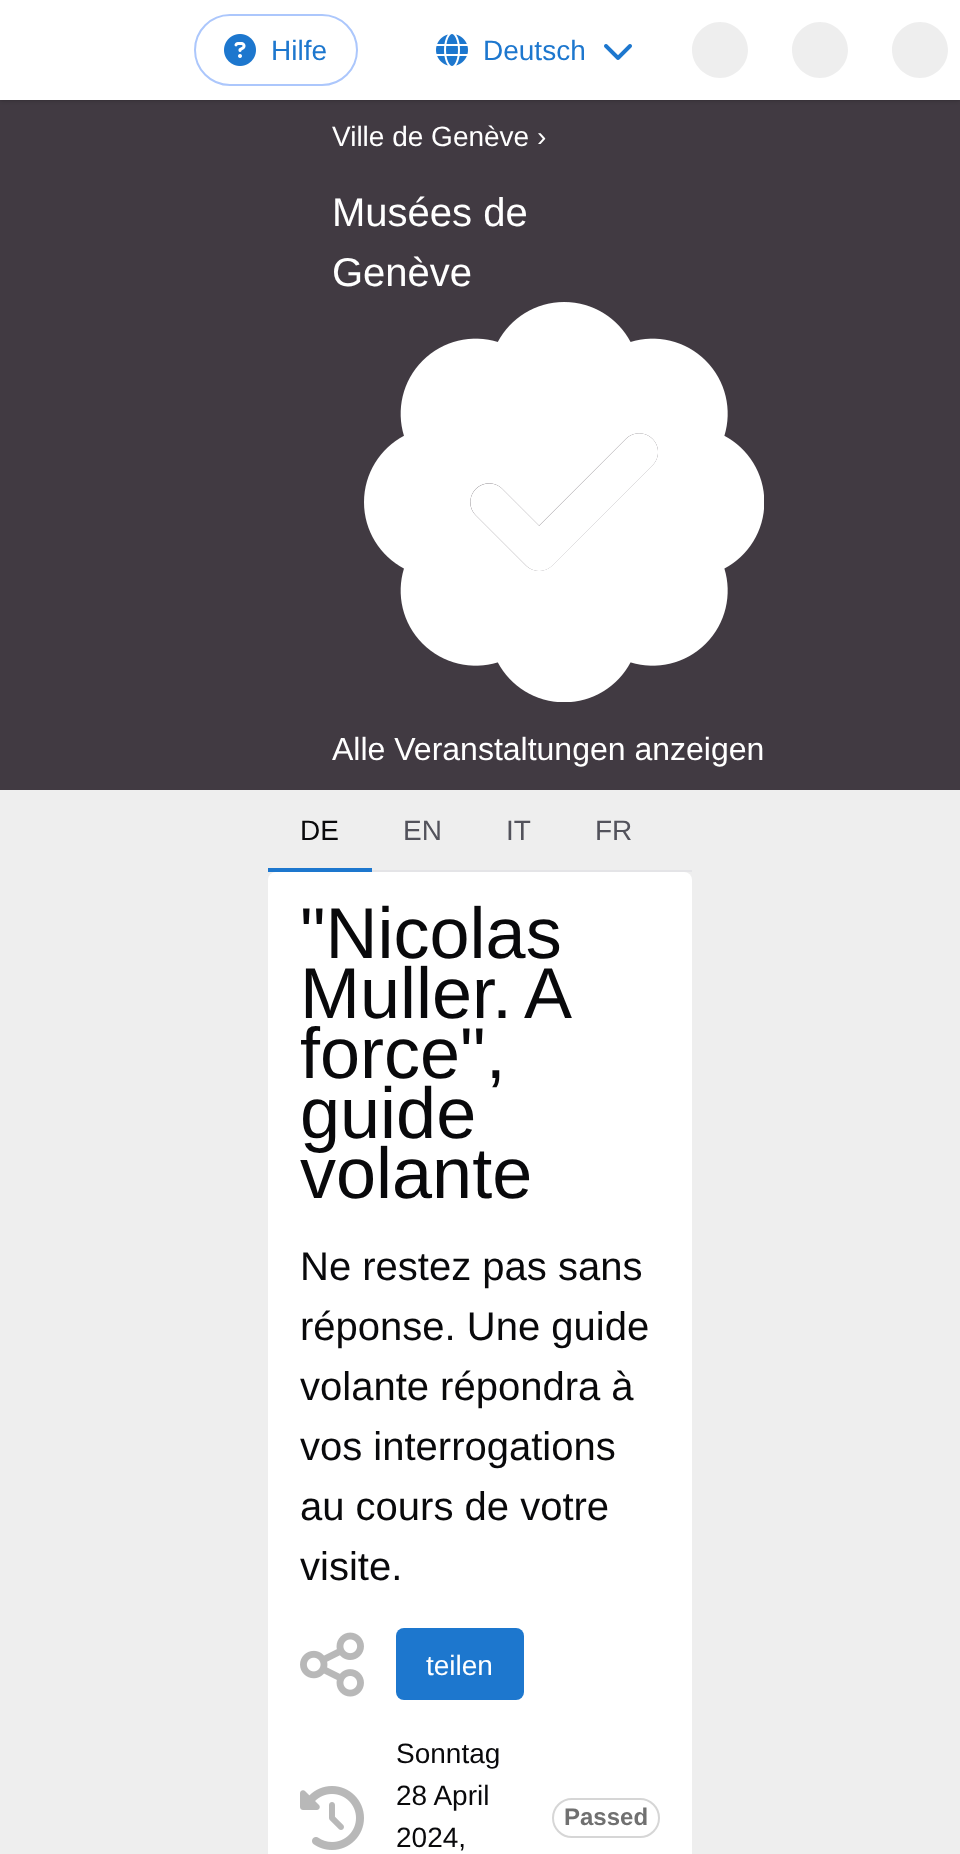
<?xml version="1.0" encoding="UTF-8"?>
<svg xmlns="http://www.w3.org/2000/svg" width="960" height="1854">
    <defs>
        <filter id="blur1" x="-50%" y="-200%" width="200%" height="500%"><feGaussianBlur stdDeviation="1"/></filter>
        <filter id="blur2" x="-50%" y="-200%" width="200%" height="500%"><feGaussianBlur stdDeviation="2"/></filter>
        <linearGradient id="g1" gradientUnits="userSpaceOnUse" x1="120" y1="10" x2="400" y2="10"><stop offset="0" stop-color="#EEEEEE"/><stop offset="0.5" stop-color="#D6D6D6"/><stop offset="1" stop-color="#EEEEEE"/></linearGradient>
    </defs>
    <rect width="100%" height="100%" fill="#EEEEEE"/>
    <rect x="0" y="100" width="960" height="690" fill="#413A42"/>
    <rect x="0" y="0" width="960" height="100" fill="#18181B" fill-opacity="0.2" filter="url(#blur1)"/>
    <rect x="0" y="2" width="960" height="100" fill="#18181B" fill-opacity="0.1" filter="url(#blur2)"/>
    <rect x="0" y="0" width="960" height="100" fill="#FFFFFF"/>
    <rect x="195" y="15" width="162" height="70" rx="35" fill="none" stroke="#ACC7FC" stroke-width="2"/>
    <image x="224" y="34" width="32" height="32" href="img_01.png"/>
    <text x="271" y="60" font-family="Liberation Sans" font-size="28" fill="#1D77CE">Hilfe</text>
    <image x="436" y="34" width="32" height="32" href="img_02.png"/>
    <text x="483" y="60" font-family="Liberation Sans" font-size="28" fill="#1D77CE">Deutsch</text>
    <image x="604" y="44" width="28" height="16" href="img_03.png"/>
    <path d="M 720 22 C 705 22 692 35 692 50 C 692 65 705 78 720 78 C 735 78 748 65 748 50 C 748 35 735 22 720 22 Z M 820 22 C 805 22 792 35 792 50 C 792 65 805 78 820 78 C 835 78 848 65 848 50 C 848 35 835 22 820 22 Z M 920 22 C 905 22 892 35 892 50 C 892 65 905 78 920 78 C 935 78 948 65 948 50 C 948 35 935 22 920 22 Z" fill="url(#g1)" fill-rule="evenodd"/>
    <text x="332" y="146" font-family="Liberation Sans" font-size="28" fill="#FFFFFF">Ville de Genève ›</text>
    <text font-family="Liberation Sans" font-size="40" fill="#FFFFFF">
        <tspan x="332" y="226">Musées de</tspan>
        <tspan x="332" y="286">Genève</tspan>
    </text>
    <image x="364" y="302" width="400" height="400" href="img_04.png"/>
    <text x="332" y="760" font-family="Liberation Sans" font-size="32" fill="#FFFFFF">Alle Veranstaltungen anzeigen</text>
    <rect x="372" y="870" width="320" height="2" fill="#E4E4E7"/>
    <text x="300" y="840" font-family="Liberation Sans" font-size="28" fill="#09090B">DE</text>
    <rect x="268" y="868" width="104" height="4" fill="#1D77CE"/>
    <text x="403" y="840" font-family="Liberation Sans" font-size="28" fill="#52525B">EN</text>
    <text x="506" y="840" font-family="Liberation Sans" font-size="28" fill="#52525B">IT</text>
    <text x="595" y="840" font-family="Liberation Sans" font-size="28" fill="#52525B">FR</text>
    <rect x="268" y="872" width="424" height="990" rx="8" fill="#FFFFFF"/>
    <text font-family="Liberation Sans" font-size="72" fill="#09090B">
        <tspan x="300" y="958">"Nicolas</tspan>
        <tspan x="300" y="1018" word-spacing="-4">Muller. A</tspan>
        <tspan x="300" y="1078">force",</tspan>
        <tspan x="300" y="1138">guide</tspan>
        <tspan x="300" y="1198">volante</tspan>
    </text>
    <text font-family="Liberation Sans" font-size="40" fill="#09090B">
        <tspan x="300" y="1280">Ne restez pas sans</tspan>
        <tspan x="300" y="1340">réponse. Une guide</tspan>
        <tspan x="300" y="1400">volante répondra à</tspan>
        <tspan x="300" y="1460">vos interrogations</tspan>
        <tspan x="300" y="1520">au cours de votre</tspan>
        <tspan x="300" y="1580">visite.</tspan>
    </text>
    <image x="300" y="1632" width="64" height="65" href="img_05.png"/>
    <rect x="396" y="1628" width="128" height="72" rx="8" fill="#1D77CE"/>
    <text x="426" y="1675" font-family="Liberation Sans" font-size="28" fill="#FFFFFF">teilen</text>
    <image x="300" y="1786" width="64" height="64" href="img_06.png"/>
    <text font-family="Liberation Sans" font-size="28" fill="#09090B">
        <tspan x="396" y="1763">Sonntag</tspan>
        <tspan x="396" y="1805">28 April</tspan>
        <tspan x="396" y="1847">2024,</tspan>
    </text>
    <rect x="553" y="1799" width="106" height="38" rx="19" fill="none" stroke="#D6D6D6" stroke-width="2"/>
    <text x="564" y="1825" font-family="Liberation Sans" font-size="24" font-weight="700" fill="#707070">Passed</text>
</svg>
